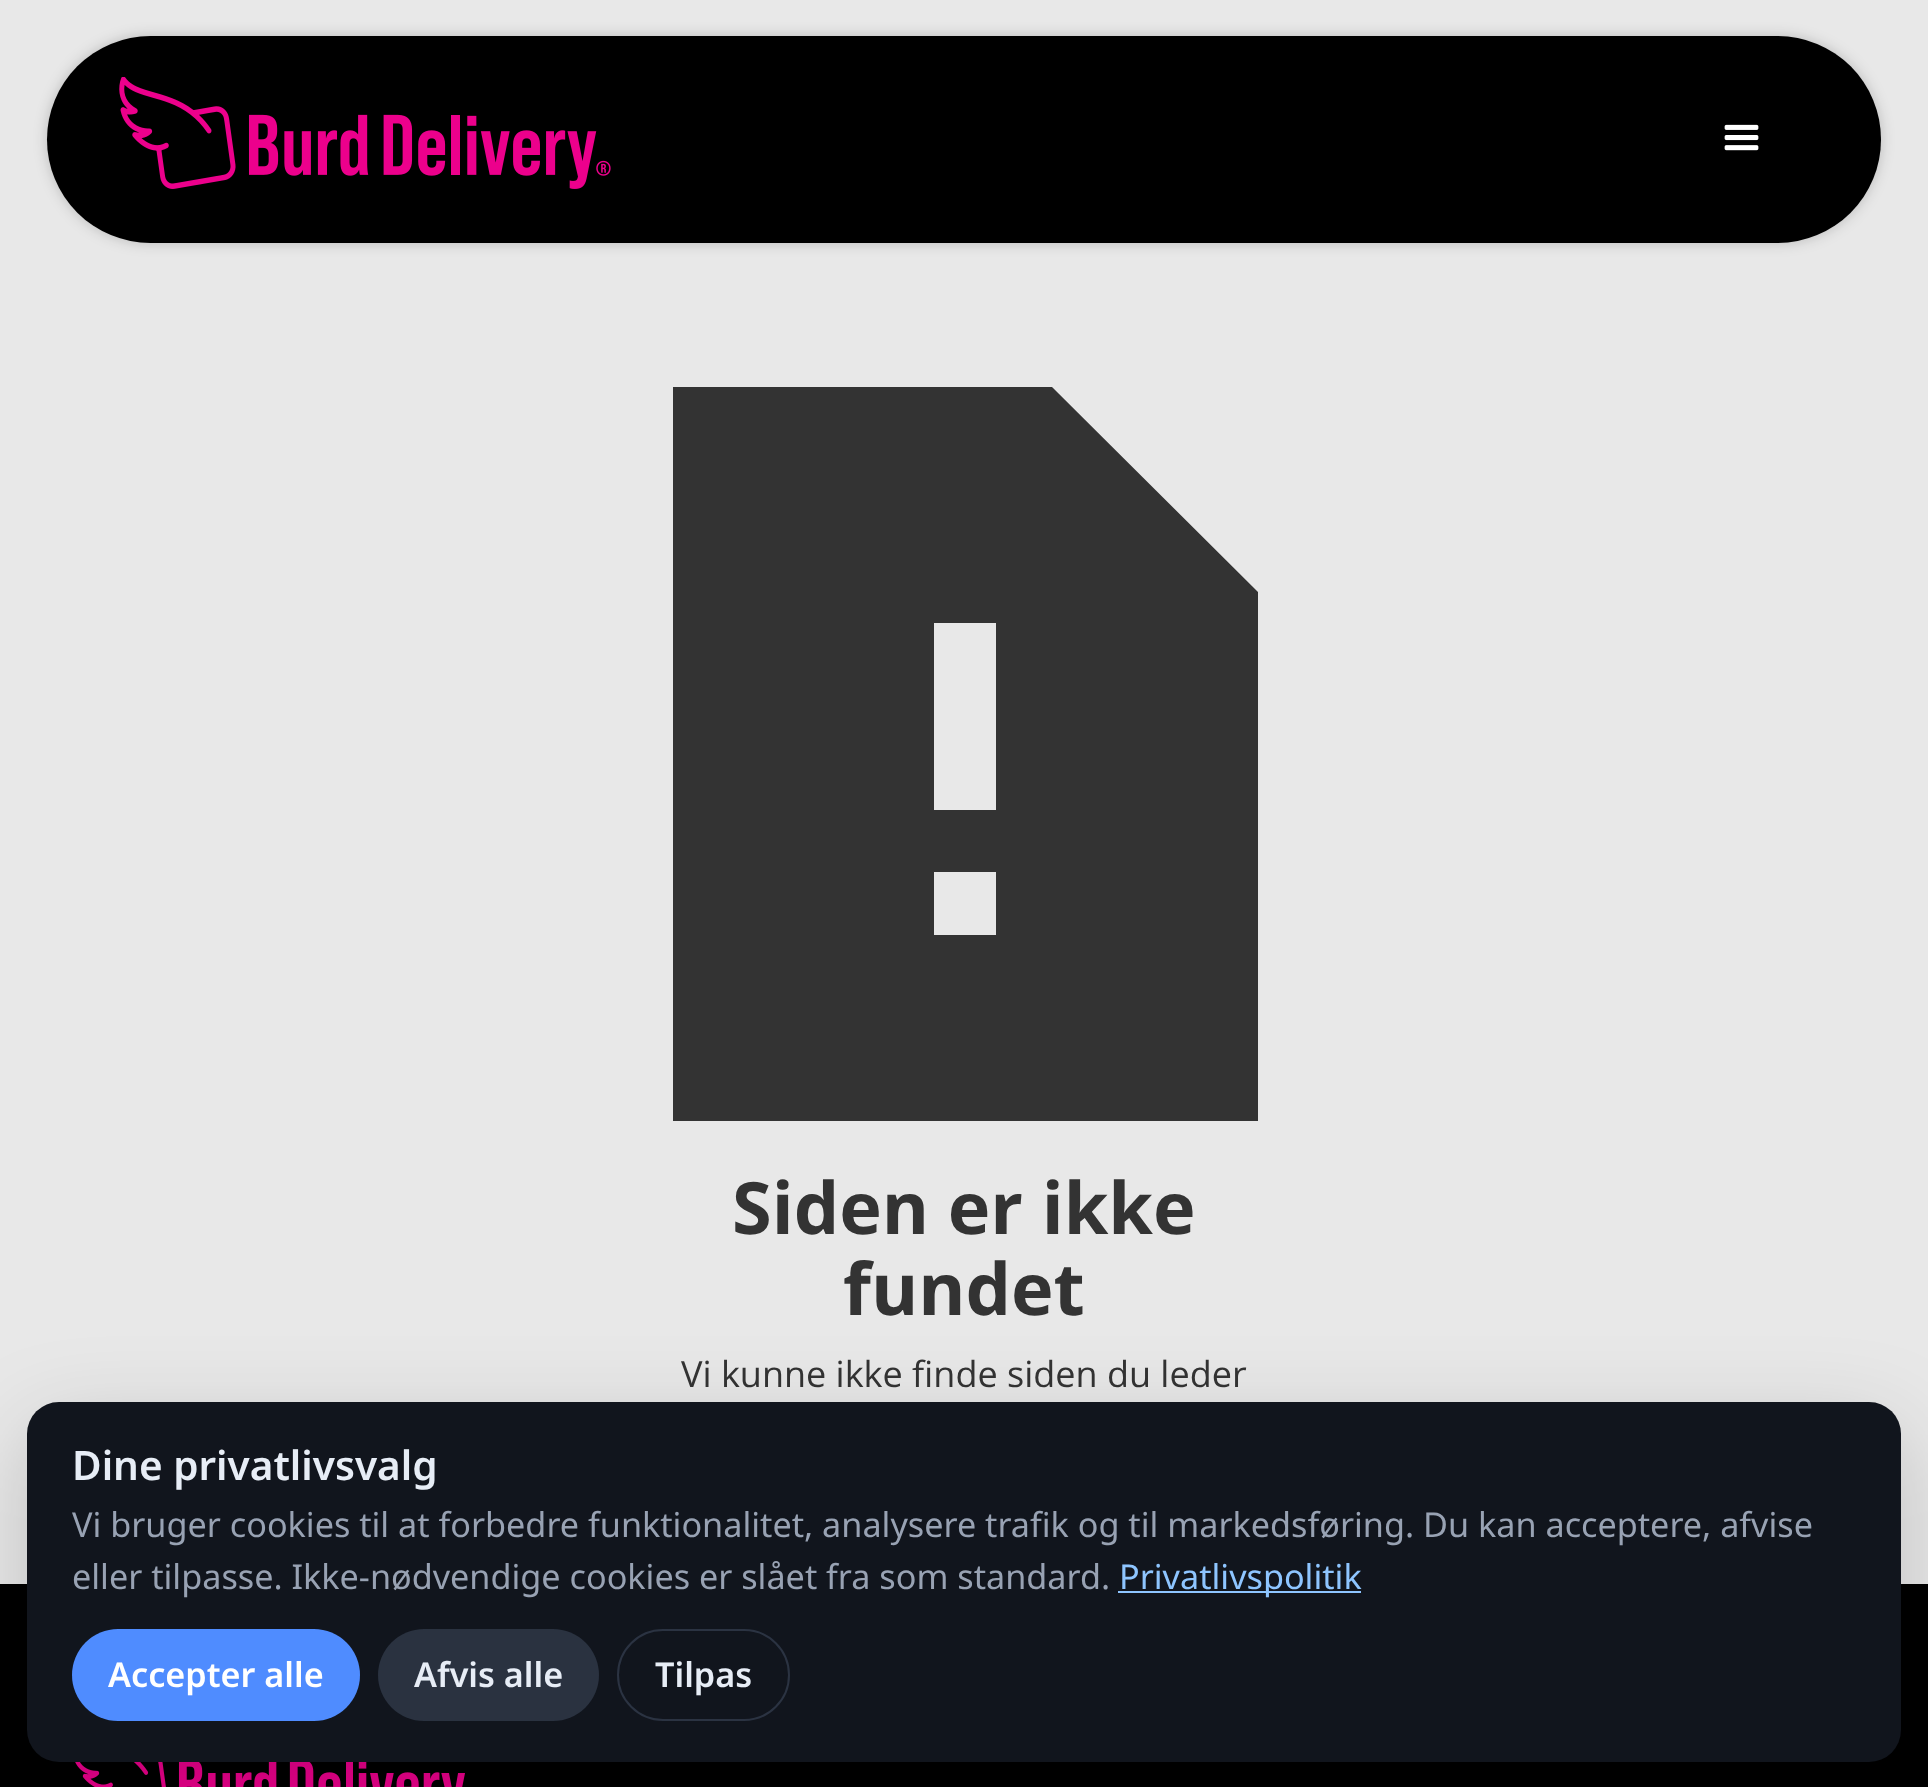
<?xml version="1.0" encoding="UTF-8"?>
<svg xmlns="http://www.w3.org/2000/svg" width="1928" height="1787">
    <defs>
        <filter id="blur1" x="-50%" y="-200%" width="200%" height="500%"><feGaussianBlur stdDeviation="7"/></filter>
        <filter id="blur2" x="-50%" y="-200%" width="200%" height="500%"><feGaussianBlur stdDeviation="45"/></filter>
    </defs>
    <rect width="100%" height="100%" fill="#E8E8E8"/>
    <rect x="47" y="36" width="1834" height="207" rx="103.5" fill="#000000" fill-opacity="0.2" filter="url(#blur1)"/>
    <rect x="47" y="36" width="1834" height="207" rx="103.5" fill="#000000"/>
    <image x="119" y="77" width="492" height="112" href="img_01.png"/>
    <image x="1724" y="124" width="35" height="27" href="img_02.png"/>
    <path d="M 673 387 H 1052 L 1258 592 V 1121 H 673 Z M 934 623 H 996 V 810 H 934 Z M 934 872 H 996 V 935 H 934 Z" fill="#333333" fill-rule="evenodd"/>
    <text x="732" y="1234" font-family="Open Sans" font-size="72" font-weight="700" fill="#333333">Siden er ikke</text>
    <text x="843" y="1315" font-family="Open Sans" font-size="72" font-weight="700" fill="#333333">fundet</text>
    <text x="681" y="1387" font-family="Open Sans" font-size="36" fill="#333333">Vi kunne ikke finde siden du leder</text>
    <rect x="0" y="1584" width="1928" height="203" fill="#000000"/>
    <image x="75" y="1762" width="390" height="25" href="img_03.png"/>
    <rect x="27" y="1429" width="1874" height="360" rx="32" fill="#000000" fill-opacity="0.18" filter="url(#blur2)"/>
    <rect x="27" y="1402" width="1874" height="360" rx="32" fill="#11151D"/>
    <text x="72" y="1480" font-family="Noto Sans" font-size="40.5" font-weight="600" fill="#E7EDF6">Dine privatlivsvalg</text>
    <text font-family="Noto Sans" font-size="34.2" fill="#98A2B3">
        <tspan x="72" y="1537">Vi bruger cookies til at forbedre funktionalitet, analysere trafik og til markedsføring. Du kan acceptere, afvise</tspan>
        <tspan x="72" y="1589">eller tilpasse. Ikke-nødvendige cookies er slået fra som standard.</tspan>
    </text>
    <rect x="1118" y="1591" width="243" height="2" fill="#8EC5FF"/>
    <text x="1119" y="1589" font-family="Noto Sans" font-size="34.2" fill="#8EC5FF">Privatlivspolitik</text>
    <rect x="72" y="1629" width="288" height="92" rx="46" fill="#4F8CFF"/>
    <text x="108" y="1687" font-family="Noto Sans" font-size="34.2" font-weight="600" fill="#FFFFFF">Accepter alle</text>
    <rect x="378" y="1629" width="221" height="92" rx="46" fill="#2A3240"/>
    <text x="414" y="1687" font-family="Noto Sans" font-size="34.2" font-weight="600" fill="#E7EDF6">Afvis alle</text>
    <rect x="618" y="1630" width="171" height="90" rx="45" fill="none" stroke="#2B3342" stroke-width="2"/>
    <text x="655" y="1687" font-family="Noto Sans" font-size="34.2" font-weight="600" fill="#E7EDF6">Tilpas</text>
</svg>
